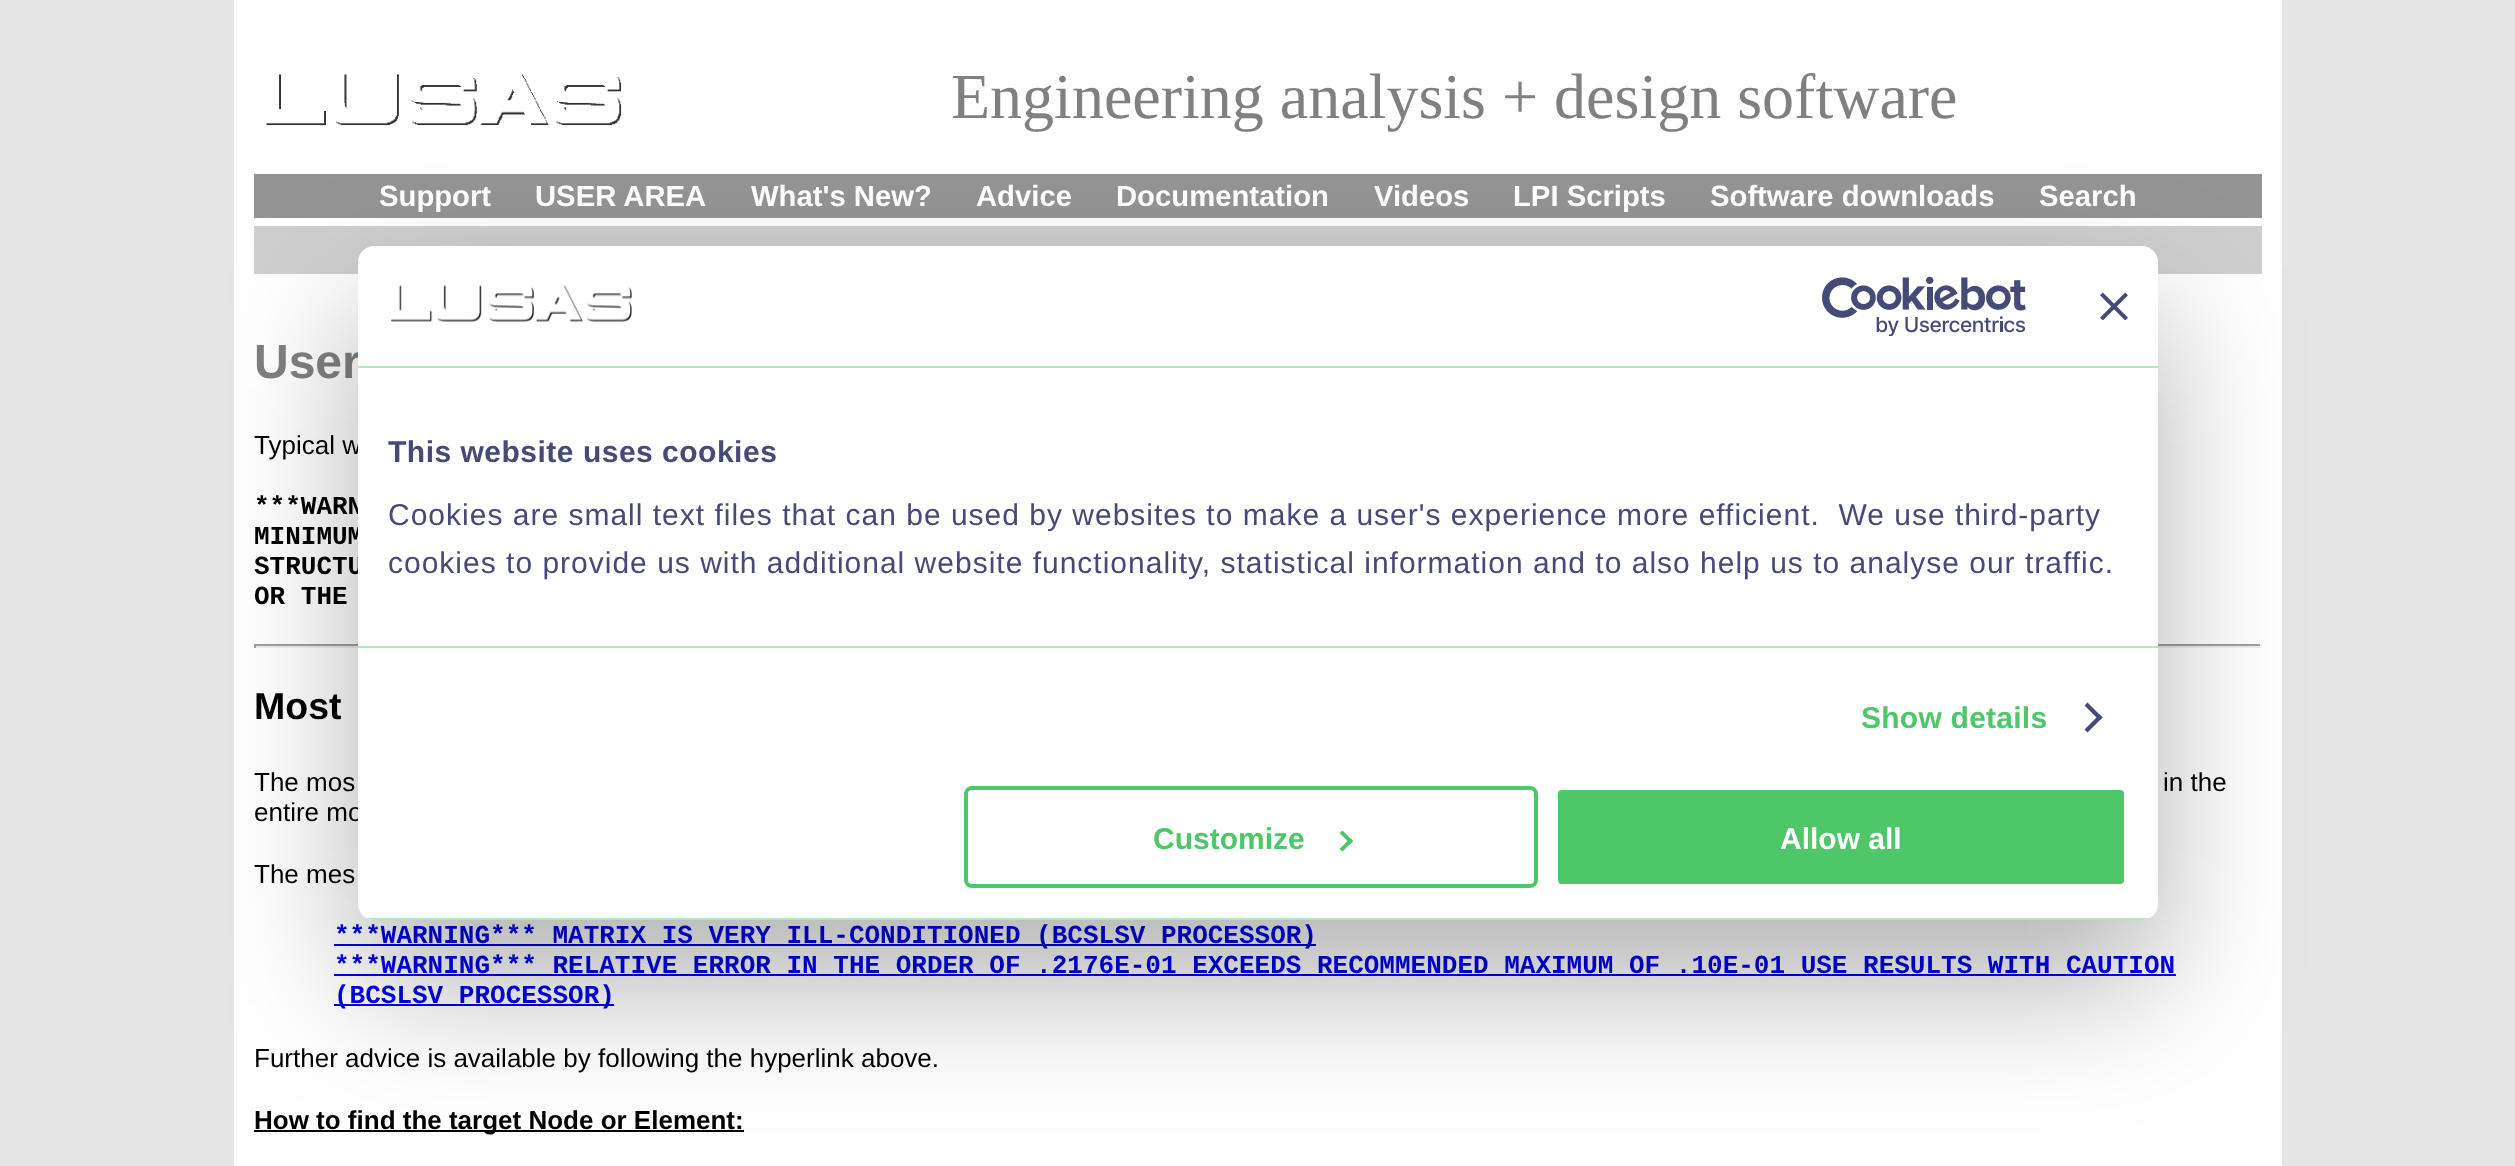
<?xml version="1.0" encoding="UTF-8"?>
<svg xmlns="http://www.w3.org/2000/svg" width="2515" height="1166">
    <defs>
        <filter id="blur1" x="-50%" y="-200%" width="200%" height="500%"><feGaussianBlur stdDeviation="68"/></filter>
        <clipPath id="clip1"><rect x="358" y="246" width="1800" height="674" rx="16"/></clipPath>
    </defs>
    <rect width="100%" height="100%" fill="#E5E5E5"/>
    <rect x="234" y="0" width="2048" height="1166" fill="#FFFFFF"/>
    <image x="266" y="74" width="356" height="52" href="img_01.png"/>
    <text x="951" y="118" font-family="Liberation Serif" font-size="64" fill="#808080">Engineering analysis + design software</text>
    <rect x="254" y="174" width="2008" height="44" fill="#949494"/>
    <text x="379" y="206" font-family="Liberation Sans" font-size="29.25" font-weight="700" fill="#FFFFFF">Support</text>
    <text x="535" y="206" font-family="Liberation Sans" font-size="29.25" font-weight="700" fill="#FFFFFF">USER AREA</text>
    <text x="751" y="206" font-family="Liberation Sans" font-size="29.25" font-weight="700" fill="#FFFFFF">What's New?</text>
    <text x="976" y="206" font-family="Liberation Sans" font-size="29.25" font-weight="700" fill="#FFFFFF">Advice</text>
    <text x="1116" y="206" font-family="Liberation Sans" font-size="29.25" font-weight="700" fill="#FFFFFF">Documentation</text>
    <text x="1374" y="206" font-family="Liberation Sans" font-size="29.25" font-weight="700" fill="#FFFFFF">Videos</text>
    <text x="1513" y="206" font-family="Liberation Sans" font-size="29.25" font-weight="700" fill="#FFFFFF">LPI Scripts</text>
    <text x="1710" y="206" font-family="Liberation Sans" font-size="29.25" font-weight="700" fill="#FFFFFF">Software downloads</text>
    <text x="2039" y="206" font-family="Liberation Sans" font-size="29.25" font-weight="700" fill="#FFFFFF">Search</text>
    <rect x="254" y="226" width="2008" height="48" fill="#CFCFCF"/>
    <text x="254" y="378" font-family="Liberation Sans" font-size="48" font-weight="700" fill="#808080">User</text>
    <text x="254" y="454" font-family="Liberation Sans" font-size="26" fill="#000000">Typical w</text>
    <text font-family="Liberation Mono" font-size="26" font-weight="700" fill="#000000">
        <tspan x="254" y="514">***WARN</tspan>
        <tspan x="254" y="544">MINIMUM</tspan>
        <tspan x="254" y="574">STRUCTU</tspan>
        <tspan x="254" y="604">OR THE</tspan>
    </text>
    <rect x="254" y="644" width="2008" height="2" fill="#9F9F9F"/>
    <rect x="2260" y="644" width="2" height="4" fill="#EEEEEE"/>
    <rect x="254" y="646" width="2008" height="2" fill="#EEEEEE"/>
    <rect x="254" y="644" width="2" height="4" fill="#9F9F9F"/>
    <text x="254" y="719" font-family="Liberation Sans" font-size="37.5" font-weight="700" fill="#000000">Most</text>
    <text x="254" y="791" font-family="Liberation Sans" font-size="26" fill="#000000">The mos</text>
    <text x="2163" y="791" font-family="Liberation Sans" font-size="26" fill="#000000">in the</text>
    <text x="254" y="821" font-family="Liberation Sans" font-size="26" fill="#000000">entire mo</text>
    <text x="254" y="883" font-family="Liberation Sans" font-size="26" fill="#000000">The mes</text>
    <rect x="334" y="944" width="982" height="2" fill="#0000EE"/>
    <text font-family="Liberation Mono" font-size="26" font-weight="700" fill="#0000EE">
        <tspan x="334" y="943">***WARNING*** MATRIX IS VERY ILL-CONDITIONED (BCSLSV PROCESSOR)</tspan>
        <tspan x="334" y="973">***WARNING*** RELATIVE ERROR IN THE ORDER OF .2176E-01 EXCEEDS RECOMMENDED MAXIMUM OF .10E-01 USE RESULTS WITH CAUTION</tspan>
    </text>
    <rect x="334" y="974" width="1842" height="2" fill="#0000EE"/>
    <rect x="334" y="1004" width="280" height="2" fill="#0000EE"/>
    <text x="334" y="1003" font-family="Liberation Mono" font-size="26" font-weight="700" fill="#0000EE">(BCSLSV PROCESSOR)</text>
    <text x="254" y="1067" font-family="Liberation Sans" font-size="26" fill="#000000">Further advice is available by following the hyperlink above.</text>
    <rect x="254" y="1130" width="490" height="2" fill="#000000"/>
    <text x="254" y="1129" font-family="Liberation Sans" font-size="26" font-weight="700" fill="#000000">How to find the target Node or Element:</text>
    <rect x="358" y="310" width="1800" height="674" rx="16" fill="#000000" fill-opacity="0.3" filter="url(#blur1)"/>
    <rect x="358" y="246" width="1800" height="674" rx="16" fill="#FFFFFF"/>
    <rect x="358" y="366" width="1800" height="2" fill="#AEEBBC"/>
    <image x="391" y="285" width="241" height="37" href="img_02.png"/>
    <image x="1822" y="276" width="204" height="60" href="img_03.png"/>
    <image x="2100" y="292" width="28" height="28" href="img_04.png"/>
    <rect x="358" y="646" width="1800" height="2" fill="#AEEBBC"/>
    <text x="388" y="462" font-family="Liberation Sans" font-size="30" font-weight="700" letter-spacing="0.5" fill="#464A77">This website uses cookies</text>
    <text font-family="Liberation Sans" font-size="30" letter-spacing="1" fill="#464A77" xml:space="preserve"><tspan x="388" y="525">Cookies are small text files that can be used by websites to make a user's experience more efficient.  We use third-party</tspan><tspan x="388" y="573">cookies to provide us with additional website functionality, statistical information and to also help us to analyse our traffic.</tspan></text>
    <text x="1861" y="728" font-family="Liberation Sans" font-size="30" font-weight="700" letter-spacing="0.25" fill="#4DC768">Show details</text>
    <path d="M 2087.5 702.5 L 2102.5 717.5 L 2099.5 720.5 L 2084.5 705.5 Z" fill="#464A77"/>
    <path d="M 2099.5 714.5 L 2102.5 717.5 L 2087.5 732.5 L 2084.5 729.5 Z" fill="#464A77"/>
    <g clip-path="url(#clip1)">
        <rect x="358" y="918" width="1800" height="2" fill="#AEEBBC"/>
    </g>
    <rect x="966" y="788" width="570" height="98" rx="6" fill="none" stroke="#4DC768" stroke-width="4"/>
    <text x="1153" y="849" font-family="Liberation Sans" font-size="30" font-weight="700" fill="#4DC768">Customize</text>
    <path d="M 1342.5 830.5 L 1353 841 L 1350.5 844 L 1339.5 833 Z" fill="#4DC768"/>
    <path d="M 1350.5 838 L 1353 841 L 1342.5 851.5 L 1339.5 849 Z" fill="#4DC768"/>
    <rect x="1556" y="788" width="570" height="98" rx="6" fill="#4DC768" stroke="#FFFFFF" stroke-width="4"/>
    <text x="1780" y="849" font-family="Liberation Sans" font-size="30" font-weight="700" fill="#FFFFFF">Allow all</text>
</svg>
